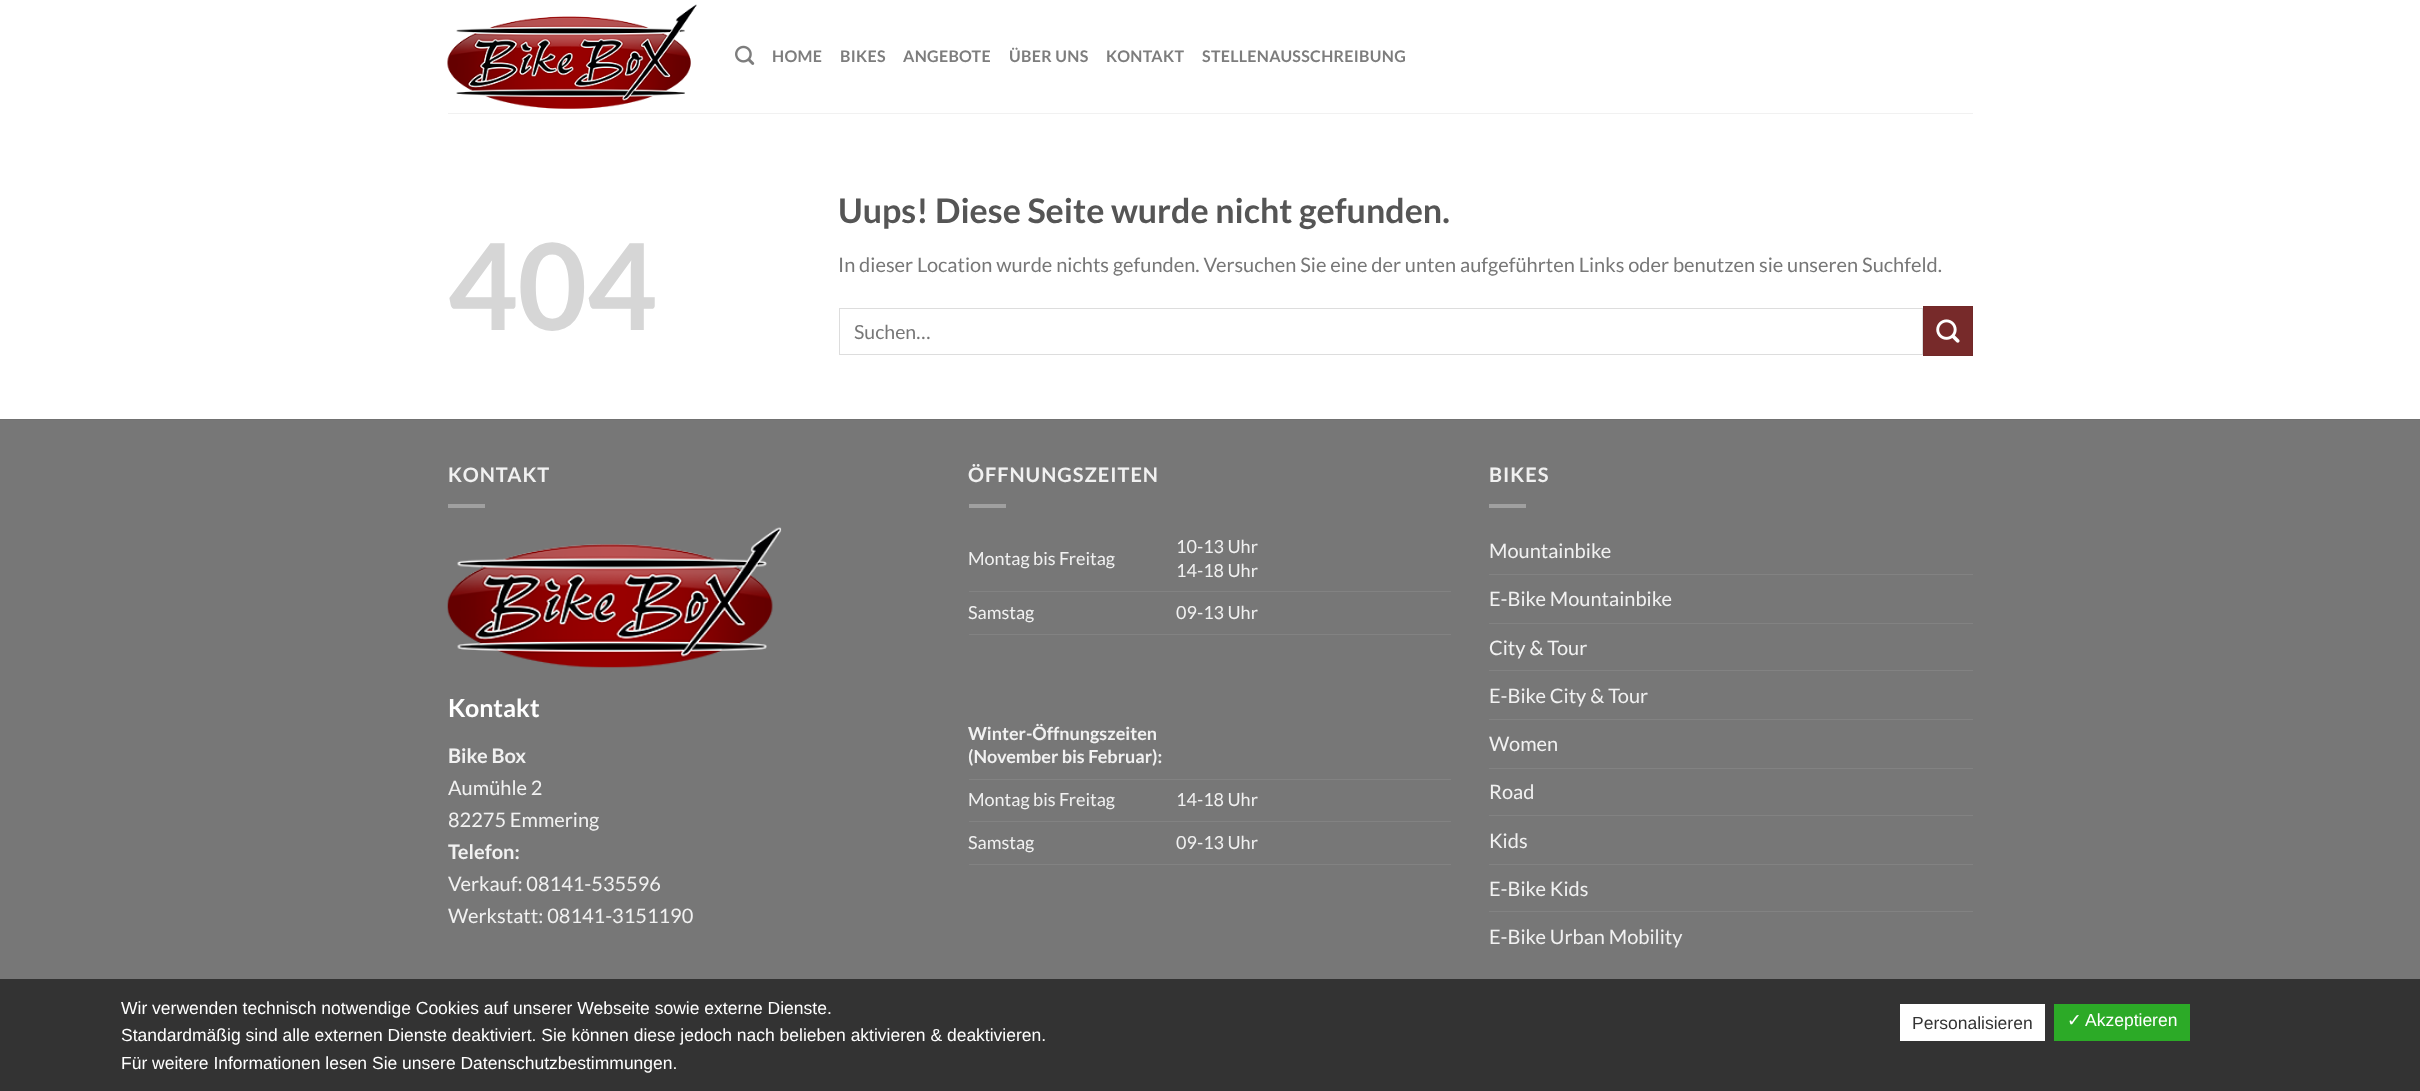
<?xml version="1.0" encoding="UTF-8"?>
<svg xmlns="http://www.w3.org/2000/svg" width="2420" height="1091">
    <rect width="100%" height="100%" fill="#FFFFFF"/>
    <image x="447" y="4" width="250" height="105" href="img_01.png"/>
    <image x="735" y="45" width="20" height="20" href="img_02.png"/>
    <text x="772" y="62" font-family="Lato" font-size="16" font-weight="700" letter-spacing="0.3" fill="#7D7D7D">HOME</text>
    <text x="840" y="62" font-family="Lato" font-size="16" font-weight="700" letter-spacing="0.3" fill="#7D7D7D">BIKES</text>
    <text x="903" y="62" font-family="Lato" font-size="16" font-weight="700" letter-spacing="0.3" fill="#7D7D7D">ANGEBOTE</text>
    <text x="1009" y="62" font-family="Lato" font-size="16" font-weight="700" letter-spacing="0.3" fill="#7D7D7D">ÜBER UNS</text>
    <text x="1106" y="62" font-family="Lato" font-size="16" font-weight="700" letter-spacing="0.3" fill="#7D7D7D">KONTAKT</text>
    <text x="1202" y="62" font-family="Lato" font-size="16" font-weight="700" letter-spacing="0.3" fill="#7D7D7D">STELLENAUSSCHREIBUNG</text>
    <rect x="448" y="113" width="1525" height="1" fill="#F1F1F1"/>
    <text x="448" y="330" font-family="Lato" font-size="120" font-weight="700" fill="#D6D6D6">404</text>
    <text x="838" y="223" font-family="Lato" font-size="34" font-weight="700" fill="#555555">Uups! Diese Seite wurde nicht gefunden.</text>
    <text x="838" y="272" font-family="Lato" font-size="20" fill="#777777">In dieser Location wurde nichts gefunden. Versuchen Sie eine der unten aufgeführten Links oder benutzen sie unseren Suchfeld.</text>
    <rect x="839.5" y="308.5" width="1083" height="46" fill="none" stroke="#DDDDDD"/>
    <text x="854" y="339" font-family="Lato" font-size="19.5" fill="#777777">Suchen…</text>
    <rect x="1923.5" y="306.5" width="49" height="49" fill="#772A2A" stroke="#712828"/>
    <image x="1936" y="319" width="24" height="24" href="img_03.png"/>
    <rect x="0" y="420" width="2420" height="559" fill="#777777"/>
    <rect x="0" y="419" width="2420" height="1" fill="#717171"/>
    <text x="448" y="482" font-family="Lato" font-size="20" font-weight="700" letter-spacing="1" fill="#F1F1F1">KONTAKT</text>
    <rect x="448" y="504" width="37" height="4" fill="#A0A0A0"/>
    <image x="447" y="527" width="335" height="141" href="img_04.png"/>
    <text x="448" y="717" font-family="Lato" font-size="25" font-weight="700" fill="#FFFFFF">Kontakt</text>
    <text x="448" y="763" font-family="Lato" font-size="20" font-weight="700" fill="#F1F1F1">Bike Box</text>
    <text font-family="Lato" font-size="20" fill="#F1F1F1">
        <tspan x="448" y="795">Aumühle 2</tspan>
        <tspan x="448" y="827">82275 Emmering</tspan>
    </text>
    <text x="448" y="859" font-family="Lato" font-size="20" font-weight="700" fill="#F1F1F1">Telefon:</text>
    <text font-family="Lato" font-size="20" fill="#F1F1F1">
        <tspan x="448" y="891">Verkauf: 08141-535596</tspan>
        <tspan x="448" y="923">Werkstatt: 08141-3151190</tspan>
    </text>
    <text x="968" y="482" font-family="Lato" font-size="20" font-weight="700" letter-spacing="1" fill="#F1F1F1">ÖFFNUNGSZEITEN</text>
    <rect x="969" y="504" width="37" height="4" fill="#A0A0A0"/>
    <rect x="969" y="591" width="482" height="1" fill="#828282"/>
    <text x="968" y="565" font-family="Lato" font-size="18" fill="#F1F1F1">Montag bis Freitag</text>
    <text font-family="Lato" font-size="18" fill="#F1F1F1">
        <tspan x="1176" y="553">10-13 Uhr</tspan>
        <tspan x="1176" y="577">14-18 Uhr</tspan>
    </text>
    <rect x="969" y="634" width="482" height="1" fill="#828282"/>
    <text x="968" y="619" font-family="Lato" font-size="18" fill="#F1F1F1">Samstag</text>
    <text x="1176" y="619" font-family="Lato" font-size="18" fill="#F1F1F1">09-13 Uhr</text>
    <rect x="969" y="779" width="482" height="1" fill="#828282"/>
    <text font-family="Lato" font-size="18" font-weight="700" fill="#F1F1F1">
        <tspan x="968" y="740">Winter-Öffnungszeiten</tspan>
        <tspan x="968" y="763">(November bis Februar):</tspan>
    </text>
    <rect x="969" y="821" width="482" height="1" fill="#828282"/>
    <text x="968" y="806" font-family="Lato" font-size="18" fill="#F1F1F1">Montag bis Freitag</text>
    <text x="1176" y="806" font-family="Lato" font-size="18" fill="#F1F1F1">14-18 Uhr</text>
    <rect x="969" y="864" width="482" height="1" fill="#828282"/>
    <text x="968" y="849" font-family="Lato" font-size="18" fill="#F1F1F1">Samstag</text>
    <text x="1176" y="849" font-family="Lato" font-size="18" fill="#F1F1F1">09-13 Uhr</text>
    <text x="1489" y="482" font-family="Lato" font-size="20" font-weight="700" letter-spacing="1" fill="#F1F1F1">BIKES</text>
    <rect x="1489" y="504" width="37" height="4" fill="#A0A0A0"/>
    <text x="1489" y="558" font-family="Lato" font-size="20" fill="#F1F1F1">Mountainbike</text>
    <rect x="1489" y="574" width="484" height="1" fill="#828282"/>
    <text x="1489" y="606" font-family="Lato" font-size="20" fill="#F1F1F1">E-Bike Mountainbike</text>
    <rect x="1489" y="623" width="484" height="1" fill="#828282"/>
    <text x="1489" y="655" font-family="Lato" font-size="20" fill="#F1F1F1">City &amp; Tour</text>
    <rect x="1489" y="670" width="484" height="1" fill="#828282"/>
    <text x="1489" y="703" font-family="Lato" font-size="20" fill="#F1F1F1">E-Bike City &amp; Tour</text>
    <rect x="1489" y="719" width="484" height="1" fill="#828282"/>
    <text x="1489" y="751" font-family="Lato" font-size="20" fill="#F1F1F1">Women</text>
    <rect x="1489" y="768" width="484" height="1" fill="#828282"/>
    <text x="1489" y="799" font-family="Lato" font-size="20" fill="#F1F1F1">Road</text>
    <rect x="1489" y="815" width="484" height="1" fill="#828282"/>
    <text x="1489" y="848" font-family="Lato" font-size="20" fill="#F1F1F1">Kids</text>
    <rect x="1489" y="864" width="484" height="1" fill="#828282"/>
    <text x="1489" y="896" font-family="Lato" font-size="20" fill="#F1F1F1">E-Bike Kids</text>
    <rect x="1489" y="911" width="484" height="1" fill="#828282"/>
    <text x="1489" y="944" font-family="Lato" font-size="20" fill="#F1F1F1">E-Bike Urban Mobility</text>
    <rect x="0" y="979" width="2420" height="112" fill="#333333"/>
    <text font-family="Liberation Sans" font-size="17.5" fill="#FFFFFF">
        <tspan x="121" y="1014">Wir verwenden technisch notwendige Cookies auf unserer Webseite sowie externe Dienste.</tspan>
        <tspan x="121" y="1041">Standardmäßig sind alle externen Dienste deaktiviert. Sie können diese jedoch nach belieben aktivieren &amp; deaktivieren.</tspan>
        <tspan x="121" y="1069">Für weitere Informationen lesen Sie unsere Datenschutzbestimmungen.</tspan>
    </text>
    <rect x="1900" y="1004" width="145" height="37" fill="#FFFFFF"/>
    <text x="1912" y="1029" font-family="Liberation Sans" font-size="17.5" fill="#333333">Personalisieren</text>
    <rect x="2054" y="1004" width="136" height="37" fill="#2CAA27"/>
    <text x="2067" y="1026" font-family="DejaVu Sans" font-size="17.5" fill="#FFFFFF">✓</text>
    <text x="2085" y="1026" font-family="Liberation Sans" font-size="17.5" fill="#FFFFFF">Akzeptieren</text>
</svg>
